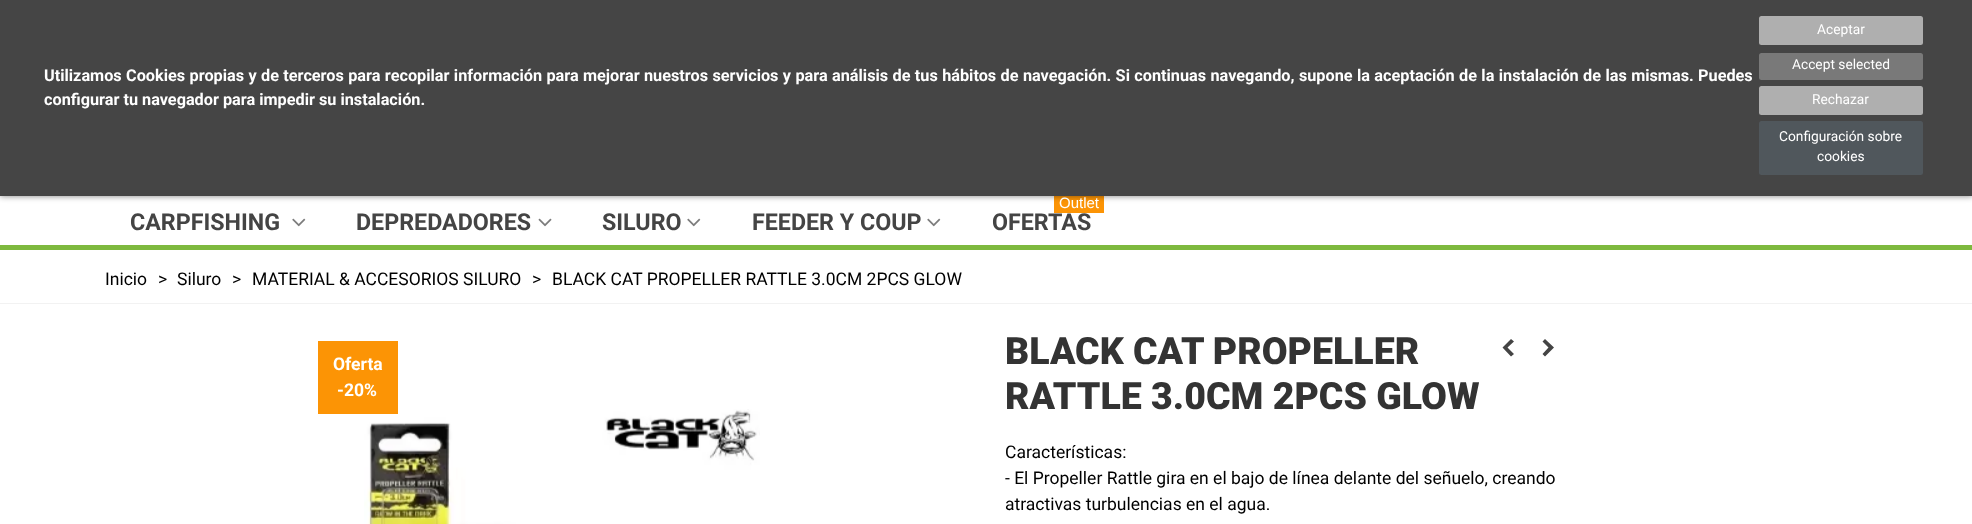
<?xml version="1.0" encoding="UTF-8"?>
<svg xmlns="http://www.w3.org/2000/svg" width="1972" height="524">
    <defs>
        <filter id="blur1" x="-50%" y="-200%" width="200%" height="500%"><feGaussianBlur stdDeviation="3"/></filter>
    </defs>
    <rect width="100%" height="100%" fill="#FFFFFF"/>
    <rect x="1054" y="196" width="50" height="17" fill="#FC9405"/>
    <rect x="0" y="0" width="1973" height="196" fill="#000000" fill-opacity="0.5" filter="url(#blur1)"/>
    <rect x="0" y="0" width="1972" height="196" fill="#454545"/>
    <text font-family="Roboto" font-size="16.25" font-weight="700" fill="#FFFFFF">
        <tspan x="44" y="81" word-spacing="0.35">Utilizamos Cookies propias y de terceros para recopilar información para mejorar nuestros servicios y para análisis de tus hábitos de navegación. Si continuas navegando, supone la aceptación de la instalación de las mismas. Puedes</tspan>
        <tspan x="44" y="105">configurar tu navegador para impedir su instalación.</tspan>
    </text>
    <rect x="1759" y="16" width="164" height="29" rx="2.5" fill="#AFAFAF"/>
    <text x="1817" y="34" font-family="Roboto" font-size="13.75" fill="#FFFFFF">Aceptar</text>
    <rect x="1759" y="53" width="164" height="27" rx="2.5" fill="#797979"/>
    <text x="1792" y="69" font-family="Roboto" font-size="13.75" fill="#FFFFFF">Accept selected</text>
    <rect x="1759" y="86" width="164" height="29" rx="2.5" fill="#AFAFAF"/>
    <text x="1812" y="104" font-family="Roboto" font-size="13.75" fill="#FFFFFF">Rechazar</text>
    <rect x="1759" y="121" width="164" height="54" rx="2.5" fill="#50575C"/>
    <text x="1779" y="141" font-family="Roboto" font-size="13.75" fill="#FFFFFF">Configuración sobre</text>
    <text x="1817" y="161" font-family="Roboto" font-size="13.75" fill="#FFFFFF">cookies</text>
    <rect x="0" y="245" width="1972" height="5" fill="#7EB93E"/>
    <text x="130" y="230" font-family="Roboto" font-size="23.25" font-weight="700" fill="#444444">CARPFISHING</text>
    <image x="292" y="218" width="14" height="9" href="img_01.png"/>
    <text x="356" y="230" font-family="Roboto" font-size="23.25" font-weight="700" fill="#444444">DEPREDADORES</text>
    <image x="538" y="218" width="14" height="9" href="img_02.png"/>
    <text x="602" y="230" font-family="Roboto" font-size="23.25" font-weight="700" fill="#444444">SILURO</text>
    <image x="687" y="218" width="14" height="9" href="img_01.png"/>
    <text x="752" y="230" font-family="Roboto" font-size="23.25" font-weight="700" fill="#444444">FEEDER Y COUP</text>
    <image x="927" y="218" width="14" height="9" href="img_01.png"/>
    <text x="1059" y="208" font-family="Liberation Sans" font-size="15" fill="#FFFFFF">Outlet</text>
    <text x="992" y="230" font-family="Roboto" font-size="23.25" font-weight="700" fill="#444444">OFERTAS</text>
    <rect x="0" y="303" width="1972" height="1" fill="#F2F2F2"/>
    <text x="105" y="285" font-family="Roboto" font-size="17.5" fill="#000000">Inicio</text>
    <text x="158" y="285" font-family="Roboto" font-size="17.5" fill="#000000">&gt;</text>
    <text x="177" y="285" font-family="Roboto" font-size="17.5" fill="#000000">Siluro</text>
    <text x="232" y="285" font-family="Roboto" font-size="17.5" fill="#000000">&gt;</text>
    <text x="252" y="285" font-family="Roboto" font-size="17.5" fill="#000000">MATERIAL &amp; ACCESORIOS SILURO</text>
    <text x="532" y="285" font-family="Roboto" font-size="17.5" fill="#000000">&gt;</text>
    <text x="552" y="285" font-family="Roboto" font-size="17.5" fill="#000000">BLACK CAT PROPELLER RATTLE 3.0CM 2PCS GLOW</text>
    <image x="364" y="409" width="396" height="115" href="img_03.png"/>
    <rect x="318" y="341" width="80" height="73" fill="#FC9405"/>
    <text x="333" y="370" font-family="Roboto" font-size="17.5" font-weight="700" fill="#FFFFFF">Oferta</text>
    <text x="337" y="396" font-family="Roboto" font-size="17.5" font-weight="700" fill="#FFFFFF">-20%</text>
    <text font-family="Roboto" font-size="37.5" font-weight="900" fill="#333333">
        <tspan x="1005" y="364">BLACK CAT PROPELLER</tspan>
        <tspan x="1005" y="409">RATTLE 3.0CM 2PCS GLOW</tspan>
    </text>
    <path d="M 1502.5 347.5 L 1511 339 L 1514 341.5 L 1507.5 347.5 L 1514 354 L 1511 356.5 Z M 1542.5 354 L 1548.5 347.5 L 1542.5 341.5 L 1545 339 L 1554 347.5 L 1545 356.5 Z" fill="#444444"/>
    <text font-family="Roboto" font-size="17.5" fill="#000000">
        <tspan x="1005" y="458">Características:</tspan>
        <tspan x="1005" y="484">- El Propeller Rattle gira en el bajo de línea delante del señuelo, creando</tspan>
        <tspan x="1005" y="510">atractivas turbulencias en el agua.</tspan>
    </text>
</svg>
